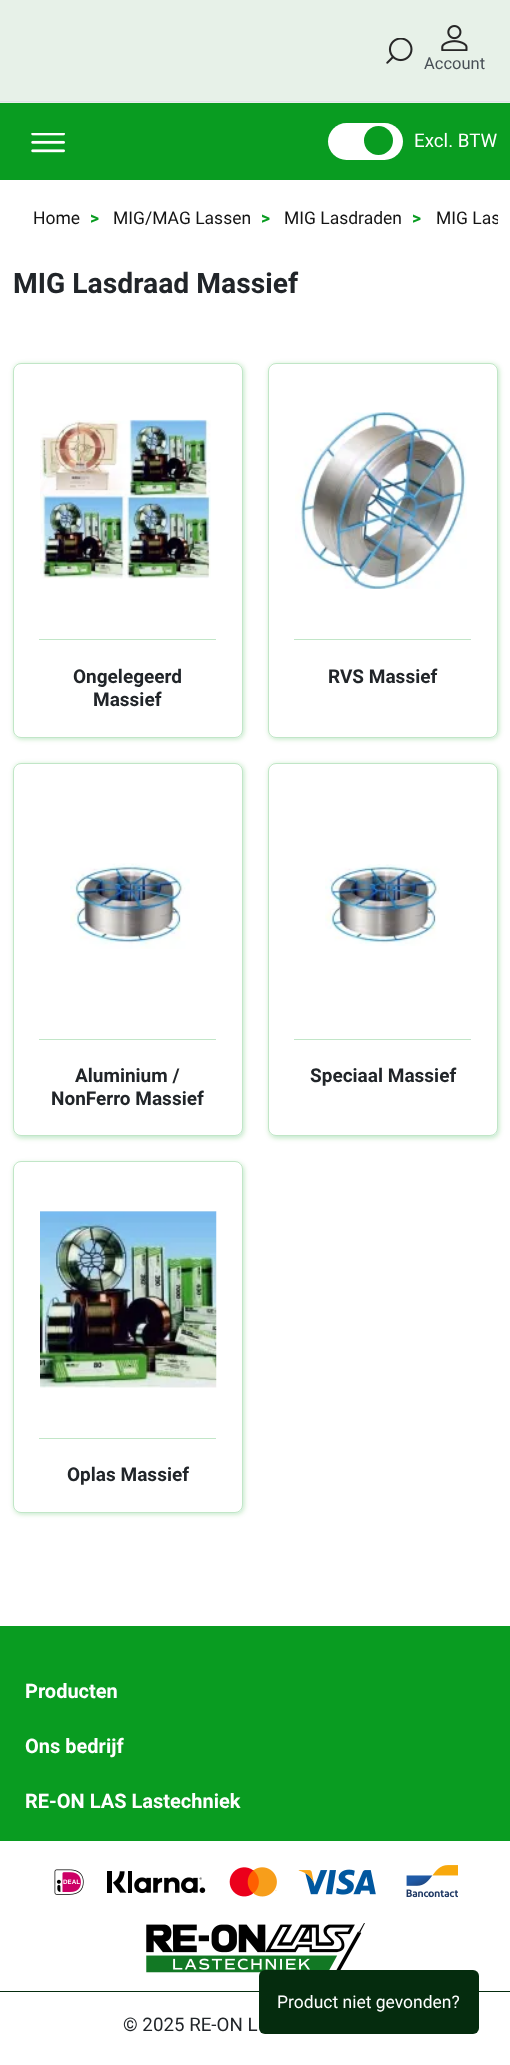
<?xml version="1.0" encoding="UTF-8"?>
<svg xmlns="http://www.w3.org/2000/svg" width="510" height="2065">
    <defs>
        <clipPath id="clip1"><rect x="13" y="205" width="485" height="41" rx="8"/></clipPath>
        <filter id="blur1" x="-50%" y="-200%" width="200%" height="500%"><feGaussianBlur stdDeviation="2.5"/></filter>
    </defs>
    <rect width="100%" height="100%" fill="#FFFFFF"/>
    <rect x="0" y="0" width="510" height="103" fill="#E7F1E8"/>
    <rect x="0" y="101" width="510" height="1" fill="#DEE2E6"/>
    <image x="386" y="38" width="27" height="26" href="img_01.png"/>
    <image x="441" y="25" width="27" height="26" href="img_02.png"/>
    <text x="424" y="69" font-family="Roboto" font-size="16.5" fill="#495057">Account</text>
    <rect x="0" y="103" width="510" height="77" fill="#099C21"/>
    <image x="31" y="133" width="34" height="20" href="img_03.png"/>
    <rect x="328" y="123" width="75" height="37" rx="18.5" fill="#FFFFFF"/>
    <circle cx="378.5" cy="140.5" r="14.5" fill="#099C21"/>
    <text x="414" y="147" font-family="Roboto" font-size="18.75" fill="#FFFFFF">Excl. BTW</text>
    <text x="33" y="224" font-family="Roboto" font-size="17.5" fill="#141414">Home</text>
    <text x="90" y="224" font-family="Roboto" font-size="17.5" font-weight="700" fill="#099C21">&gt;</text>
    <text x="113" y="224" font-family="Roboto" font-size="17.5" fill="#141414">MIG/MAG Lassen</text>
    <text x="261" y="224" font-family="Roboto" font-size="17.5" font-weight="700" fill="#099C21">&gt;</text>
    <text x="284" y="224" font-family="Roboto" font-size="17.5" fill="#141414">MIG Lasdraden</text>
    <text x="412" y="224" font-family="Roboto" font-size="17.5" font-weight="700" fill="#099C21">&gt;</text>
    <g clip-path="url(#clip1)">
        <text x="436" y="224" font-family="Roboto" font-size="17.5" fill="#141414">MIG Las</text>
    </g>
    <text x="13" y="293" font-family="Roboto" font-size="28.25" font-weight="700" fill="#212529">MIG Lasdraad Massief</text>
    <rect x="14" y="364" width="230" height="375" rx="8" fill="#099C21" fill-opacity="0.25" filter="url(#blur1)"/>
    <rect x="13" y="363" width="230" height="375" rx="8" fill="#FFFFFF"/>
    <rect x="13.5" y="363.5" width="229" height="374" rx="7.5" fill="none" stroke="#099C21" stroke-opacity="0.25"/>
    <rect x="39" y="639" width="177" height="1" fill="#C2E6C8"/>
    <image x="40" y="419" width="171" height="160" href="img_04.png"/>
    <text x="73" y="683" font-family="Roboto" font-size="19" font-weight="700" fill="#212529">Ongelegeerd</text>
    <text x="93" y="706" font-family="Roboto" font-size="19" font-weight="700" fill="#212529">Massief</text>
    <rect x="269" y="364" width="230" height="375" rx="8" fill="#099C21" fill-opacity="0.25" filter="url(#blur1)"/>
    <rect x="268" y="363" width="230" height="375" rx="8" fill="#FFFFFF"/>
    <rect x="268.5" y="363.5" width="229" height="374" rx="7.5" fill="none" stroke="#099C21" stroke-opacity="0.25"/>
    <rect x="294" y="639" width="177" height="1" fill="#C2E6C8"/>
    <image x="295" y="412" width="172" height="177" href="img_05.png"/>
    <text x="328" y="683" font-family="Roboto" font-size="19" font-weight="700" fill="#212529">RVS Massief</text>
    <rect x="14" y="764" width="230" height="374" rx="8" fill="#099C21" fill-opacity="0.25" filter="url(#blur1)"/>
    <rect x="13" y="763" width="230" height="373" rx="8" fill="#FFFFFF"/>
    <rect x="13.5" y="763.5" width="229" height="372" rx="7.5" fill="none" stroke="#099C21" stroke-opacity="0.25"/>
    <rect x="39" y="1039" width="177" height="1" fill="#C2E6C8"/>
    <image x="70" y="863" width="120" height="86" href="img_06.png"/>
    <text x="75" y="1082" font-family="Roboto" font-size="19" font-weight="700" fill="#212529">Aluminium /</text>
    <text x="51" y="1105" font-family="Roboto" font-size="19" font-weight="700" fill="#212529">NonFerro Massief</text>
    <rect x="269" y="764" width="230" height="374" rx="8" fill="#099C21" fill-opacity="0.25" filter="url(#blur1)"/>
    <rect x="268" y="763" width="230" height="373" rx="8" fill="#FFFFFF"/>
    <rect x="268.5" y="763.5" width="229" height="372" rx="7.5" fill="none" stroke="#099C21" stroke-opacity="0.25"/>
    <rect x="294" y="1039" width="177" height="1" fill="#C2E6C8"/>
    <image x="325" y="864" width="115" height="82" href="img_07.png"/>
    <text x="310" y="1082" font-family="Roboto" font-size="19" font-weight="700" fill="#212529">Speciaal Massief</text>
    <rect x="14" y="1163" width="230" height="351" rx="8" fill="#099C21" fill-opacity="0.25" filter="url(#blur1)"/>
    <rect x="13" y="1161" width="230" height="352" rx="8" fill="#FFFFFF"/>
    <rect x="13.5" y="1161.5" width="229" height="351" rx="7.5" fill="none" stroke="#099C21" stroke-opacity="0.25"/>
    <rect x="39" y="1438" width="177" height="1" fill="#C2E6C8"/>
    <image x="40" y="1211" width="177" height="177" href="img_08.png"/>
    <text x="67" y="1481" font-family="Roboto" font-size="19" font-weight="700" fill="#212529">Oplas Massief</text>
    <rect x="0" y="1626" width="510" height="215" fill="#099C21"/>
    <text x="25" y="1698" font-family="Roboto" font-size="20" font-weight="700" fill="#FFFFFF">Producten</text>
    <text x="25" y="1753" font-family="Roboto" font-size="20" font-weight="700" fill="#FFFFFF">Ons bedrijf</text>
    <text x="25" y="1808" font-family="Roboto" font-size="20" font-weight="700" fill="#FFFFFF">RE-ON LAS Lastechniek</text>
    <rect x="0" y="1991" width="510" height="1" fill="#052C0E"/>
    <image x="54" y="1865" width="404" height="33" href="img_09.png"/>
    <image x="146" y="1923" width="219" height="50" href="img_10.png"/>
    <text x="123" y="2031" font-family="Roboto" font-size="18.75" fill="#212529">© 2025 RE-ON L</text>
    <rect x="259" y="1970" width="220" height="64" rx="6" fill="#052C0E"/>
    <text x="277" y="2008" font-family="Roboto" font-size="17.5" fill="#FFFFFF">Product niet gevonden?</text>
</svg>
